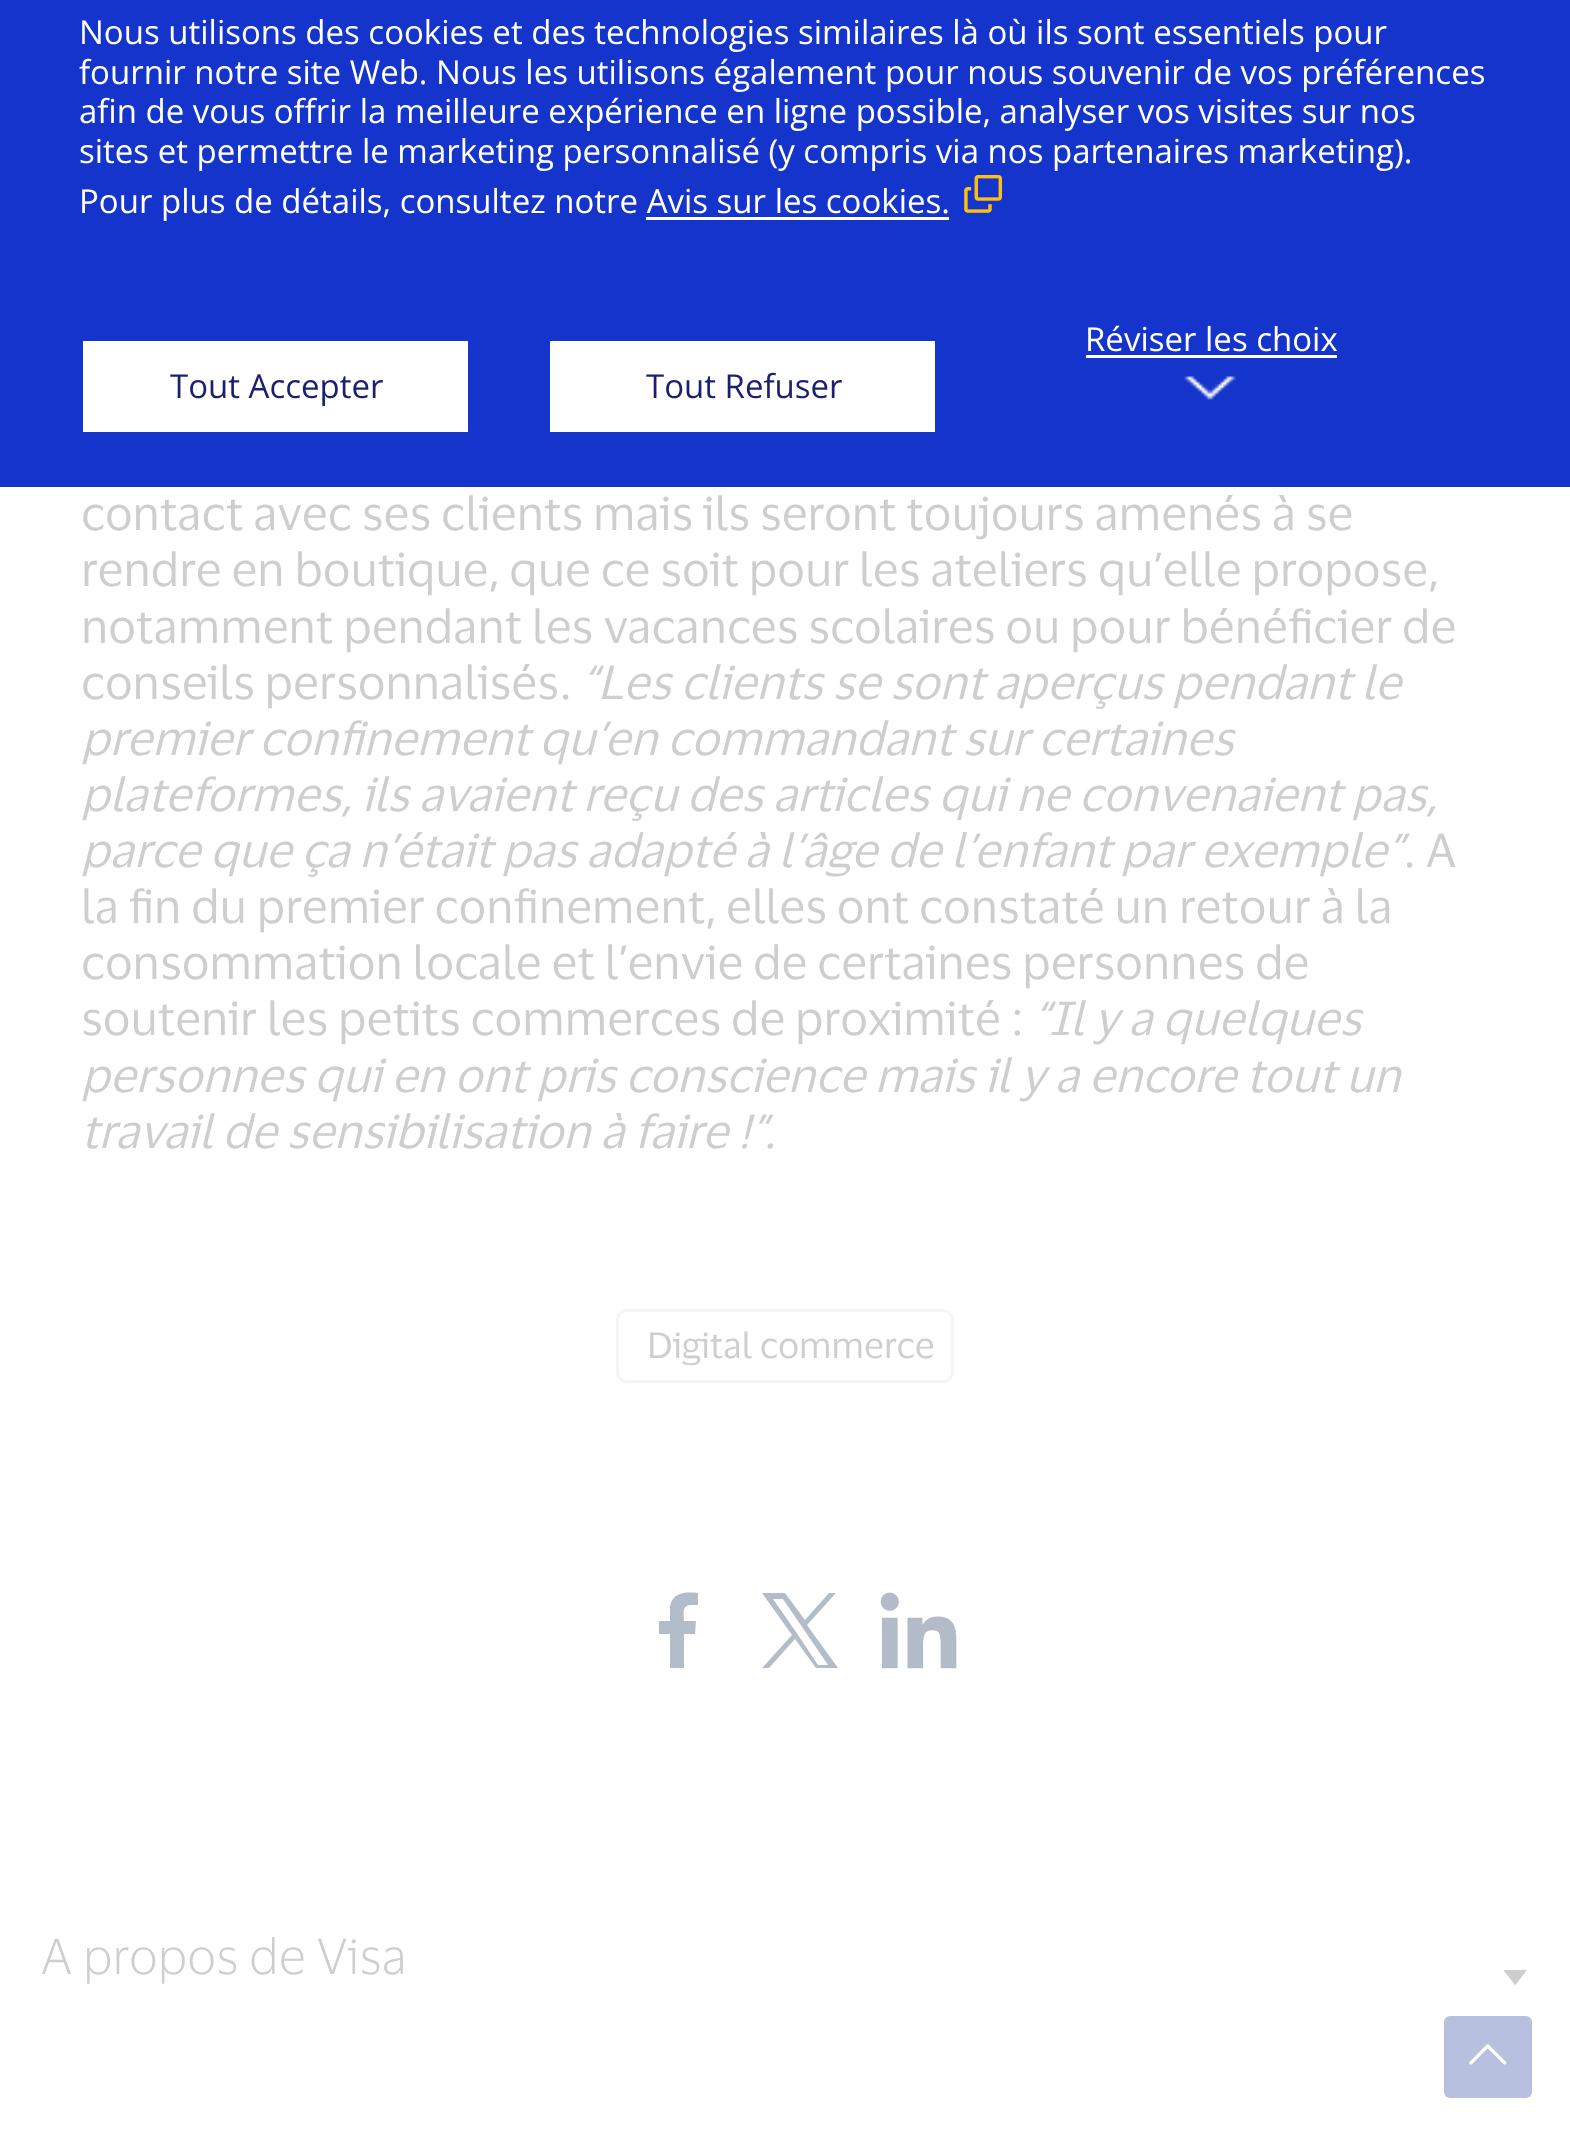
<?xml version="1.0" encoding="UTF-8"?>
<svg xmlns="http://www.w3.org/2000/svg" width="1570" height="2155">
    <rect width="100%" height="100%" fill="#FFFFFF"/>
    <rect x="0" y="0" width="1570" height="487" fill="#1434CB"/>
    <text font-family="Open Sans" font-size="33" fill="#FFFFFF">
        <tspan x="79" y="44">Nous utilisons des cookies et des technologies similaires là où ils sont essentiels pour</tspan>
        <tspan x="79" y="84">fournir notre site Web. Nous les utilisons également pour nous souvenir de vos préférences</tspan>
        <tspan x="79" y="123">afin de vous offrir la meilleure expérience en ligne possible, analyser vos visites sur nos</tspan>
        <tspan x="79" y="163">sites et permettre le marketing personnalisé (y compris via nos partenaires marketing).</tspan>
    </text>
    <image x="964" y="175" width="39" height="38" href="img_01.png"/>
    <rect x="646" y="217" width="303" height="3" fill="#FFFFFF"/>
    <text x="79" y="213" font-family="Open Sans" font-size="33" fill="#FFFFFF">Pour plus de détails, consultez notre Avis sur les cookies.</text>
    <text x="1085" y="351" font-family="Open Sans" font-size="33" fill="#FFFFFF">Réviser les choix</text>
    <rect x="1086" y="355" width="251" height="3" fill="#FFFFFF"/>
    <image x="1184" y="376" width="52" height="24" href="img_02.png"/>
    <rect x="83" y="341" width="385" height="91" fill="#FFFFFF"/>
    <text x="170" y="398" font-family="Open Sans" font-size="33" fill="#1A1F72">Tout Accepter</text>
    <rect x="550" y="341" width="385" height="91" fill="#FFFFFF"/>
    <text x="646" y="398" font-family="Open Sans" font-size="33" fill="#1A1F72">Tout Refuser</text>
    <text font-family="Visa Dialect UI" font-size="46.75" fill="#CECECE">
        <tspan x="81" y="530">contact avec ses clients mais ils seront toujours amenés à se</tspan>
        <tspan x="81" y="586">rendre en boutique, que ce soit pour les ateliers qu’elle propose,</tspan>
        <tspan x="81" y="643">notamment pendant les vacances scolaires ou pour bénéficier de</tspan>
        <tspan x="81" y="699">conseils personnalisés.</tspan>
    </text>
    <text x="581" y="699" font-family="Visa Dialect UI" font-size="46.75" font-style="italic" fill="#CECECE">“Les clients se sont aperçus pendant le</text>
    <text font-family="Visa Dialect UI" font-size="46.75" font-style="italic" fill="#CECECE">
        <tspan x="81" y="755">premier confinement qu’en commandant sur certaines</tspan>
        <tspan x="81" y="811">plateformes, ils avaient reçu des articles qui ne convenaient pas,</tspan>
        <tspan x="81" y="867">parce que ça n’était pas adapté à l’âge de l’enfant par exemple”</tspan>
    </text>
    <text x="1403" y="867" font-family="Visa Dialect UI" font-size="46.75" fill="#CECECE">. A</text>
    <text font-family="Visa Dialect UI" font-size="46.75" fill="#CECECE">
        <tspan x="81" y="923">la fin du premier confinement, elles ont constaté un retour à la</tspan>
        <tspan x="81" y="979">consommation locale et l’envie de certaines personnes de</tspan>
        <tspan x="81" y="1035">soutenir les petits commerces de proximité :</tspan>
    </text>
    <text x="1033" y="1035" font-family="Visa Dialect UI" font-size="46.75" font-style="italic" fill="#CECECE">“Il y a quelques</text>
    <text font-family="Visa Dialect UI" font-size="46.75" font-style="italic" fill="#CECECE">
        <tspan x="81" y="1092">personnes qui en ont pris conscience mais il y a encore tout un</tspan>
        <tspan x="81" y="1148">travail de sensibilisation à faire !”.</tspan>
    </text>
    <rect x="617.5" y="1310.5" width="335" height="71" rx="9.5" fill="none" stroke="#F5F5F5" stroke-width="3"/>
    <text x="647" y="1358" font-family="Visa Dialect UI" font-size="35.75" fill="#CECECE">Digital commerce</text>
    <path d="M 691 1605 H 698 V 1593 C 686 1592 673 1592 670 1606 V 1621 H 659 V 1634 H 670 V 1668 H 684 V 1634 H 695 L 696 1621 H 684 C 684 1615 681 1605 691 1605 Z" fill="#B3BCC9"/>
    <path d="M 836 1593 L 807 1625 L 838 1668 H 816 L 795 1639 L 769 1668 H 762 L 792 1635 L 762 1593 H 785 L 805 1620 L 829 1593 Z M 796 1632 L 818 1665 H 828 L 783 1599 H 773 Z" fill="#B3BCC9"/>
    <image x="880" y="1592" width="77" height="77" href="img_03.png"/>
    <text x="41" y="1974" font-family="Visa Dialect UI" font-size="49.5" font-weight="300" fill="#CECECE">A propos de Visa</text>
    <path d="M 1504 1971 L 1515 1985 H 1515.5 L 1526.5 1970.5 C 1527.5 1969 1522 1970 1519 1970 H 1504 Z" fill="#CECECE"/>
    <rect x="1444" y="2016" width="88" height="82" rx="6" fill="#B8C0E0"/>
    <image x="1469" y="2044" width="38" height="21" href="img_04.png"/>
</svg>
